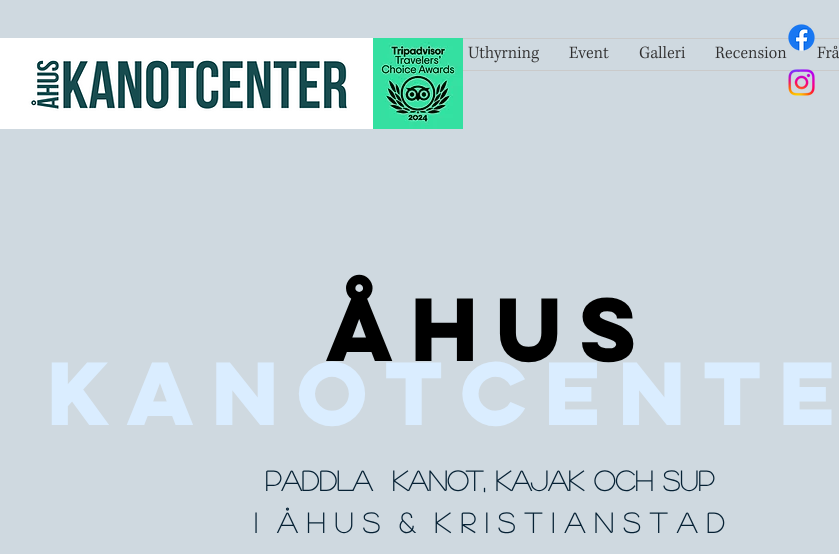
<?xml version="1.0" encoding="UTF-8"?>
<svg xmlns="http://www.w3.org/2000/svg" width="839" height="554">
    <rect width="100%" height="100%" fill="#CFD9E0"/>
    <image x="0" y="38" width="373" height="91" href="img_01.png"/>
    <image x="373" y="38" width="90" height="91" href="img_02.png"/>
    <rect x="463" y="38" width="376" height="1" fill="#CACACA"/>
    <rect x="463" y="70" width="376" height="1" fill="#CACACA"/>
    <image x="468" y="46" width="71" height="17" href="img_03.png"/>
    <image x="569" y="46" width="40" height="13" href="img_04.png"/>
    <image x="639" y="46" width="47" height="13" href="img_05.png"/>
    <image x="715" y="46" width="72" height="13" href="img_06.png"/>
    <image x="817" y="45" width="22" height="14" href="img_07.png"/>
    <image x="788" y="24" width="27" height="27" href="img_08.png"/>
    <image x="788" y="69" width="27" height="27" href="img_09.png"/>
    <text x="326" y="361" font-family="'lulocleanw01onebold'" font-size="80" font-weight="700" fill="#000000">ÅHUS</text>
    <text x="47" y="425" font-family="'lulocleanw01onebold'" font-size="80" font-weight="700" fill="#DAEDFF">KANOTCENTE</text>
    <text x="265" y="491" font-family="'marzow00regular'" font-size="28" font-weight="700" fill="#062134" xml:space="preserve">PADDLA  KANOT, KAJAK OCH SUP</text>
    <text x="254" y="533" font-family="'marzow00regular'" font-size="28" font-weight="700" fill="#062134" xml:space="preserve">i  Å H U S  &amp;  K R I S T I A N S T A D</text>
</svg>
